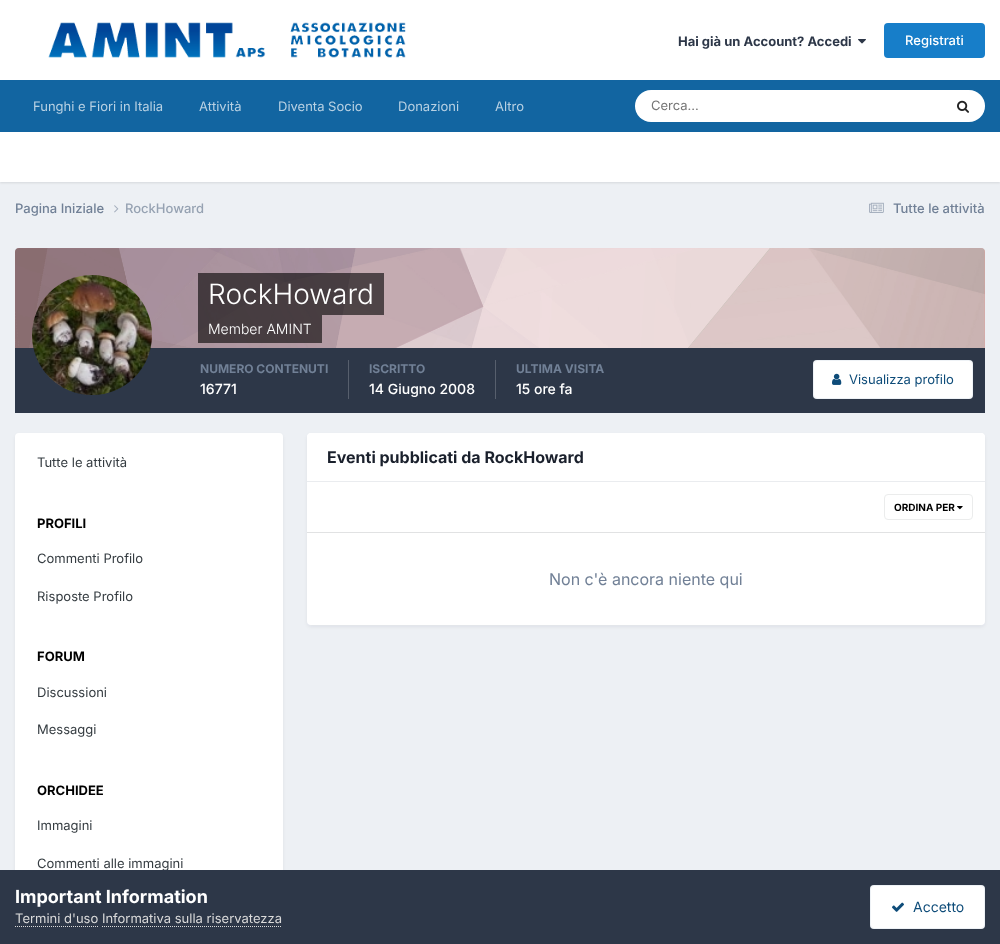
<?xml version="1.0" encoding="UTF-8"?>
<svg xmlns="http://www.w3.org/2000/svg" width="1000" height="944">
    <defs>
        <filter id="blur1" x="-50%" y="-200%" width="200%" height="500%"><feGaussianBlur stdDeviation="1"/></filter>
        <filter id="blur2" x="-50%" y="-200%" width="200%" height="500%"><feGaussianBlur stdDeviation="2"/></filter>
    </defs>
    <rect width="100%" height="100%" fill="#EDF0F4"/>
    <rect x="0" y="0" width="1000" height="80" fill="#FFFFFF"/>
    <image x="48" y="22" width="358" height="36" href="img_01.png"/>
    <text x="678" y="46" font-family="Inter" font-size="13" font-weight="700" fill="#2D3748">Hai già un Account? Accedi</text>
    <image x="858" y="39" width="8" height="5" href="img_02.png"/>
    <rect x="884" y="23" width="101" height="35" rx="4" fill="#177EC9"/>
    <text x="905" y="45" font-family="Inter" font-size="13" font-weight="500" fill="#FFFFFF">Registrati</text>
    <rect x="0" y="80" width="1000" height="52" fill="#1265A1"/>
    <text x="33" y="111" font-family="Inter" font-size="13" fill="#B8D1E3">Funghi e Fiori in Italia</text>
    <text x="199" y="111" font-family="Inter" font-size="13" fill="#B8D1E3">Attività</text>
    <text x="278" y="111" font-family="Inter" font-size="13" fill="#B8D1E3">Diventa Socio</text>
    <text x="398" y="111" font-family="Inter" font-size="13" fill="#B8D1E3">Donazioni</text>
    <text x="495" y="111" font-family="Inter" font-size="13" fill="#B8D1E3">Altro</text>
    <rect x="635" y="90" width="350" height="32" rx="16" fill="#FFFFFF"/>
    <text x="651" y="110" font-family="Inter" font-size="13" fill="#757575">Cerca...</text>
    <image x="957" y="100" width="12" height="13" href="img_03.png"/>
    <rect x="0" y="133" width="1000" height="50" fill="#000000" fill-opacity="0.1" filter="url(#blur1)"/>
    <rect x="0" y="132" width="1000" height="50" fill="#FFFFFF"/>
    <text x="15" y="213" font-family="Inter" font-size="13" font-weight="500" fill="#718096">Pagina Iniziale</text>
    <image x="114" y="205" width="5" height="8" href="img_04.png"/>
    <text x="125" y="213" font-family="Inter" font-size="13" font-weight="500" fill="#96A2B2">RockHoward</text>
    <image x="869" y="202" width="15" height="11" href="img_05.png"/>
    <text x="893" y="213" font-family="Inter" font-size="13" font-weight="500" fill="#718096">Tutte le attività</text>
    <path d="M 19 248 H 981 C 983 248 985 250 985 252 V 348 H 15 V 252 C 15 250 17 248 19 248 Z" fill="#FF99A7"/>
    <image x="15" y="248" width="970" height="100" href="img_06.png"/>
    <rect x="15" y="348" width="970" height="65" fill="#2D3748"/>
    <image x="32" y="275" width="120" height="120" href="img_07.png"/>
    <rect x="198" y="273" width="186" height="42" fill="#000000" fill-opacity="0.6"/>
    <text x="208" y="304" font-family="Inter" font-size="28" font-weight="300" fill="#FFFFFF">RockHoward</text>
    <rect x="198" y="315" width="124" height="28" fill="#000000" fill-opacity="0.6"/>
    <text x="208" y="334" font-family="Inter" font-size="14" font-weight="300" fill="#FFFFFF">Member AMINT</text>
    <rect x="348" y="360" width="1" height="39" fill="#575F6D"/>
    <text x="200" y="373" font-family="Inter" font-size="12" font-weight="700" fill="#718096">NUMERO CONTENUTI</text>
    <text x="200" y="394" font-family="Inter" font-size="14" font-weight="500" fill="#FFFFFF">16771</text>
    <rect x="495" y="360" width="1" height="39" fill="#575F6D"/>
    <text x="369" y="373" font-family="Inter" font-size="12" font-weight="700" fill="#718096">ISCRITTO</text>
    <text x="369" y="394" font-family="Inter" font-size="14" font-weight="500" fill="#FFFFFF">14 Giugno 2008</text>
    <text x="516" y="373" font-family="Inter" font-size="12" font-weight="700" fill="#718096">ULTIMA VISITA</text>
    <text x="516" y="394" font-family="Inter" font-size="14" font-weight="500" fill="#FFFFFF">15 ore fa</text>
    <rect x="813" y="360" width="160" height="39" rx="4" fill="#FFFFFF"/>
    <rect x="813.5" y="360.5" width="159" height="38" rx="3.5" fill="none" stroke="#0E4C79" stroke-opacity="0.07"/>
    <image x="832" y="373" width="10" height="12" href="img_08.png"/>
    <text x="849" y="384" font-family="Inter" font-size="13" fill="#0E4C79">Visualizza profilo</text>
    <rect x="16" y="436" width="266" height="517" rx="3" fill="#2D3748" fill-opacity="0.1" filter="url(#blur2)"/>
    <rect x="15" y="433" width="268" height="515" rx="4" fill="#FFFFFF"/>
    <text x="37" y="467" font-family="Inter" font-size="13" fill="#353C41">Tutte le attività</text>
    <text x="37" y="528" font-family="Inter" font-size="13" font-weight="700" fill="#000000">PROFILI</text>
    <text x="37" y="563" font-family="Inter" font-size="13" fill="#353C41">Commenti Profilo</text>
    <text x="37" y="601" font-family="Inter" font-size="13" fill="#353C41">Risposte Profilo</text>
    <text x="37" y="661" font-family="Inter" font-size="13" font-weight="700" fill="#000000">FORUM</text>
    <text x="37" y="697" font-family="Inter" font-size="13" fill="#353C41">Discussioni</text>
    <text x="37" y="734" font-family="Inter" font-size="13" fill="#353C41">Messaggi</text>
    <text x="37" y="795" font-family="Inter" font-size="13" font-weight="700" fill="#000000">ORCHIDEE</text>
    <text x="37" y="830" font-family="Inter" font-size="13" fill="#353C41">Immagini</text>
    <text x="37" y="868" font-family="Inter" font-size="13" fill="#353C41">Commenti alle immagini</text>
    <rect x="308" y="436" width="676" height="190" rx="3" fill="#2D3748" fill-opacity="0.1" filter="url(#blur2)"/>
    <rect x="307" y="433" width="678" height="192" rx="4" fill="#FFFFFF"/>
    <path d="M 311 433 H 981 C 983 433 985 435 985 437 V 482 H 307 V 437 C 307 435 309 433 311 433 Z" fill="#FFFFFF"/>
    <rect x="307" y="481" width="678" height="1" fill="#EAECEF"/>
    <text x="327" y="463" font-family="Inter" font-size="16" font-weight="700" fill="#1A202C">Eventi pubblicati da RockHoward</text>
    <rect x="307" y="532" width="678" height="1" fill="#E1E2E3"/>
    <image x="957" y="506" width="6" height="4" href="img_09.png"/>
    <rect x="884.5" y="494.5" width="88" height="25" rx="3.5" fill="none" stroke="#EBECEC"/>
    <text x="894" y="511" font-family="Inter" font-size="10" font-weight="700" fill="#000000">ORDINA PER</text>
    <text x="549" y="585" font-family="Inter" font-size="16" fill="#718096">Non c'è ancora niente qui</text>
    <rect x="0" y="870" width="1000" height="74" fill="#2D3748"/>
    <text x="15" y="903" font-family="Inter" font-size="18" font-weight="700" fill="#FFFFFF">Important Information</text>
    <text x="15" y="923" font-family="Inter" font-size="13" fill="#DADADA">Termini d'uso Informativa sulla riservatezza</text>
    <path d="M 15 926.5 H 98" fill="none" stroke="#DADADA" stroke-dasharray="1 1"/>
    <path d="M 102 926.5 H 282" fill="none" stroke="#DADADA" stroke-dasharray="1 1"/>
    <rect x="870" y="885" width="115" height="44" rx="4" fill="#FFFFFF"/>
    <rect x="870.5" y="885.5" width="114" height="43" rx="3.5" fill="none" stroke="#0E4C79" stroke-opacity="0.07"/>
    <image x="892" y="902" width="12" height="10" href="img_10.png"/>
    <text x="913" y="912" font-family="Inter" font-size="14" fill="#0E4C79">Accetto</text>
</svg>
